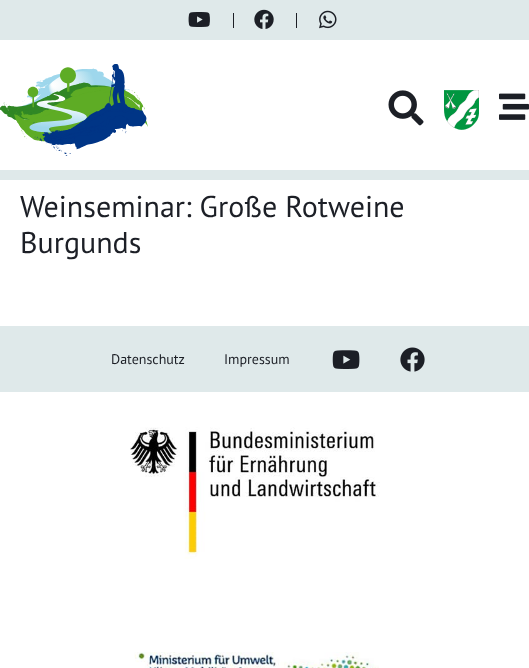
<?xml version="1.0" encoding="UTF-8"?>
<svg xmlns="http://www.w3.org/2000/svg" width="529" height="668">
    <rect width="100%" height="100%" fill="#FFFFFF"/>
    <rect x="0" y="0" width="529" height="40" fill="#DFE9EA"/>
    <image x="188" y="12" width="22" height="15" href="img_01.png"/>
    <rect x="233" y="13" width="1" height="15" fill="#1C1F26"/>
    <image x="254" y="9" width="20" height="20" href="img_02.png"/>
    <rect x="296" y="13" width="1" height="15" fill="#1C1F26"/>
    <image x="319" y="10" width="18" height="19" href="img_03.png"/>
    <image x="0" y="64" width="148" height="92" href="img_04.png"/>
    <image x="388" y="90" width="36" height="36" href="img_05.png"/>
    <image x="444" y="90" width="35" height="40" href="img_06.png"/>
    <image x="499" y="93" width="30" height="27" href="img_07.png"/>
    <rect x="0" y="170" width="529" height="10" fill="#DFE9EA"/>
    <text font-family="PT Sans" font-size="30" fill="#1C1F26">
        <tspan x="20" y="217">Weinseminar: Große Rotweine</tspan>
        <tspan x="20" y="253">Burgunds</tspan>
    </text>
    <rect x="0" y="326" width="529" height="66" fill="#DFE9EA"/>
    <text x="111" y="364" font-family="PT Sans" font-size="14" fill="#1C1F26">Datenschutz</text>
    <text x="224" y="364" font-family="PT Sans" font-size="14" fill="#1C1F26">Impressum</text>
    <image x="332" y="350" width="28" height="19" href="img_08.png"/>
    <image x="400" y="347" width="25" height="25" href="img_09.png"/>
    <image x="130" y="427" width="250" height="132" href="img_10.png"/>
    <image x="134" y="652" width="245" height="16" href="img_11.png"/>
</svg>
